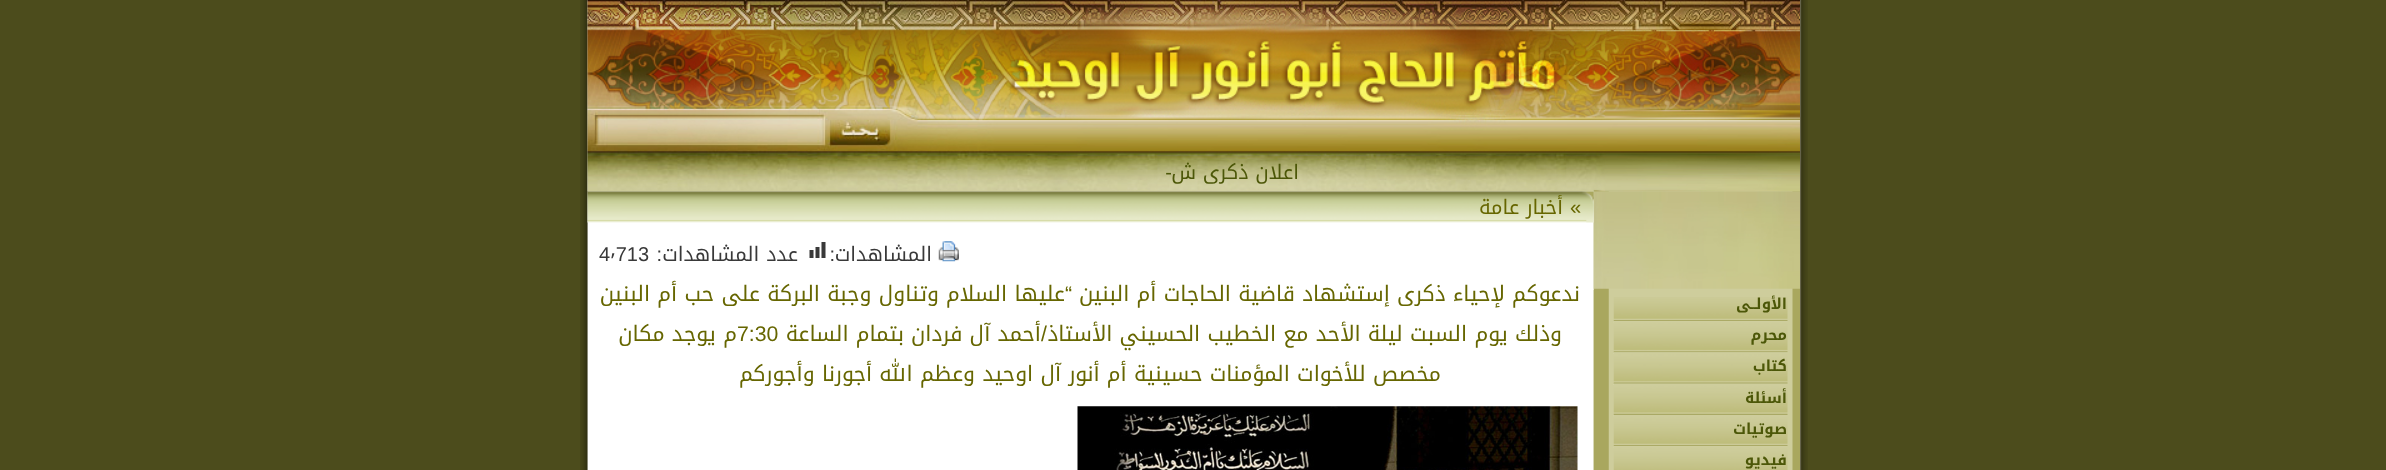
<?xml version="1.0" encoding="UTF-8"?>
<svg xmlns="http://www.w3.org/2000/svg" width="2386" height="470">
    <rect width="100%" height="100%" fill="#4C4C1C"/>
    <image x="580" y="0" width="1228" height="470" href="img_01.png"/>
    <image x="1593" y="191" width="207" height="279" href="img_02.png"/>
    <image x="1593" y="191" width="207" height="98" href="img_04.png"/>
    <image x="587" y="191" width="1007" height="32" href="img_12.png"/>
    <image x="587" y="0" width="1213" height="192" href="img_03.png"/>
    <text x="1299" y="179" font-family="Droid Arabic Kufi" font-size="20" direction="rtl" fill="#4C5708">اعلان ذكرى ش</text>
    <text x="1172" y="179" font-family="Liberation Sans" font-size="20" direction="rtl" fill="#4C5708">-</text>
    <image x="1593" y="290" width="207" height="180" href="img_05.png"/>
    <image x="1613" y="297" width="175" height="26" href="img_06.png"/>
    <text x="1787" y="309" font-family="Droid Arabic Kufi" font-size="15" font-weight="700" direction="rtl" fill="#4C5708">الأولــى</text>
    <image x="1613" y="321" width="175" height="33" href="img_07.png"/>
    <text x="1787" y="340" font-family="Droid Arabic Kufi" font-size="15" font-weight="700" direction="rtl" fill="#4C5708">محرم</text>
    <image x="1613" y="352" width="175" height="33" href="img_08.png"/>
    <text x="1787" y="371" font-family="Droid Arabic Kufi" font-size="15" font-weight="700" direction="rtl" fill="#4C5708">كتاب</text>
    <image x="1613" y="383" width="175" height="34" href="img_09.png"/>
    <text x="1787" y="403" font-family="Droid Arabic Kufi" font-size="15" font-weight="700" direction="rtl" fill="#4C5708">أسئلة</text>
    <image x="1613" y="415" width="175" height="33" href="img_10.png"/>
    <text x="1787" y="434" font-family="Droid Arabic Kufi" font-size="15" font-weight="700" direction="rtl" fill="#4C5708">صوتيات</text>
    <image x="1613" y="446" width="175" height="24" href="img_11.png"/>
    <text x="1787" y="465" font-family="Droid Arabic Kufi" font-size="15" font-weight="700" direction="rtl" fill="#4C5708">فيديو</text>
    <text x="1581" y="214" font-family="Liberation Sans" font-size="20" direction="rtl" fill="#666600">»</text>
    <text x="1563" y="214" font-family="Droid Arabic Kufi" font-size="20" direction="rtl" fill="#666600">أخبار عامة</text>
    <image x="938" y="241" width="21" height="21" href="img_13.png"/>
    <text x="932" y="261" font-family="Droid Arabic Kufi" font-size="20" direction="rtl" fill="#393939">المشاهدات</text>
    <text x="835" y="261" font-family="Liberation Sans" font-size="20" direction="rtl" fill="#393939">:</text>
    <image x="809" y="242" width="17" height="16" href="img_14.png"/>
    <text x="798" y="261" font-family="Droid Arabic Kufi" font-size="20" direction="rtl" fill="#393939">عدد المشاهدات</text>
    <text x="662" y="261" font-family="Liberation Sans" font-size="20" direction="rtl" fill="#393939">:</text>
    <text x="599" y="261" font-family="Liberation Sans" font-size="20" fill="#393939">4 713</text>
    <text x="610" y="261" font-family="Droid Arabic Kufi" font-size="20" fill="#393939">٬</text>
    <text x="1580" y="301" font-family="Droid Arabic Kufi" font-size="21.25" direction="rtl" fill="#666600">ندعوكم لإحياء ذكرى إستشهاد قاضية الحاجات أم البنين</text>
    <text x="1072" y="301" font-family="Liberation Sans" font-size="21.25" direction="rtl" fill="#666600">“</text>
    <text x="1065" y="301" font-family="Droid Arabic Kufi" font-size="21.25" direction="rtl" fill="#666600">عليها السلام</text>
    <text x="939" y="301" font-family="Droid Arabic Kufi" font-size="21.25" direction="rtl" fill="#666600">وتناول وجبة البركة على حب أم البنين</text>
    <text x="1562" y="341" font-family="Droid Arabic Kufi" font-size="21.25" direction="rtl" fill="#666600">وذلك يوم السبت ليلة الأحد مع الخطيب الحسيني الأستاذ</text>
    <text x="1047" y="341" font-family="Liberation Sans" font-size="21.25" direction="rtl" fill="#666600">/</text>
    <text x="1041" y="341" font-family="Droid Arabic Kufi" font-size="21.25" direction="rtl" fill="#666600">أحمد آل فردان بتمام الساعة</text>
    <text x="737" y="341" font-family="Liberation Sans" font-size="21.25" fill="#666600">7:30</text>
    <text x="737" y="341" font-family="Droid Arabic Kufi" font-size="21.25" direction="rtl" fill="#666600">م يوجد مكان</text>
    <text x="1441" y="381" font-family="Droid Arabic Kufi" font-size="21.25" direction="rtl" fill="#666600">مخصص للأخوات المؤمنات حسينية أم أنور آل اوحيد</text>
    <text x="975" y="381" font-family="Droid Arabic Kufi" font-size="21.25" direction="rtl" fill="#666600">وعظم الله أجورنا وأجوركم</text>
    <image x="1077" y="406" width="501" height="64" href="img_15.png"/>
</svg>
